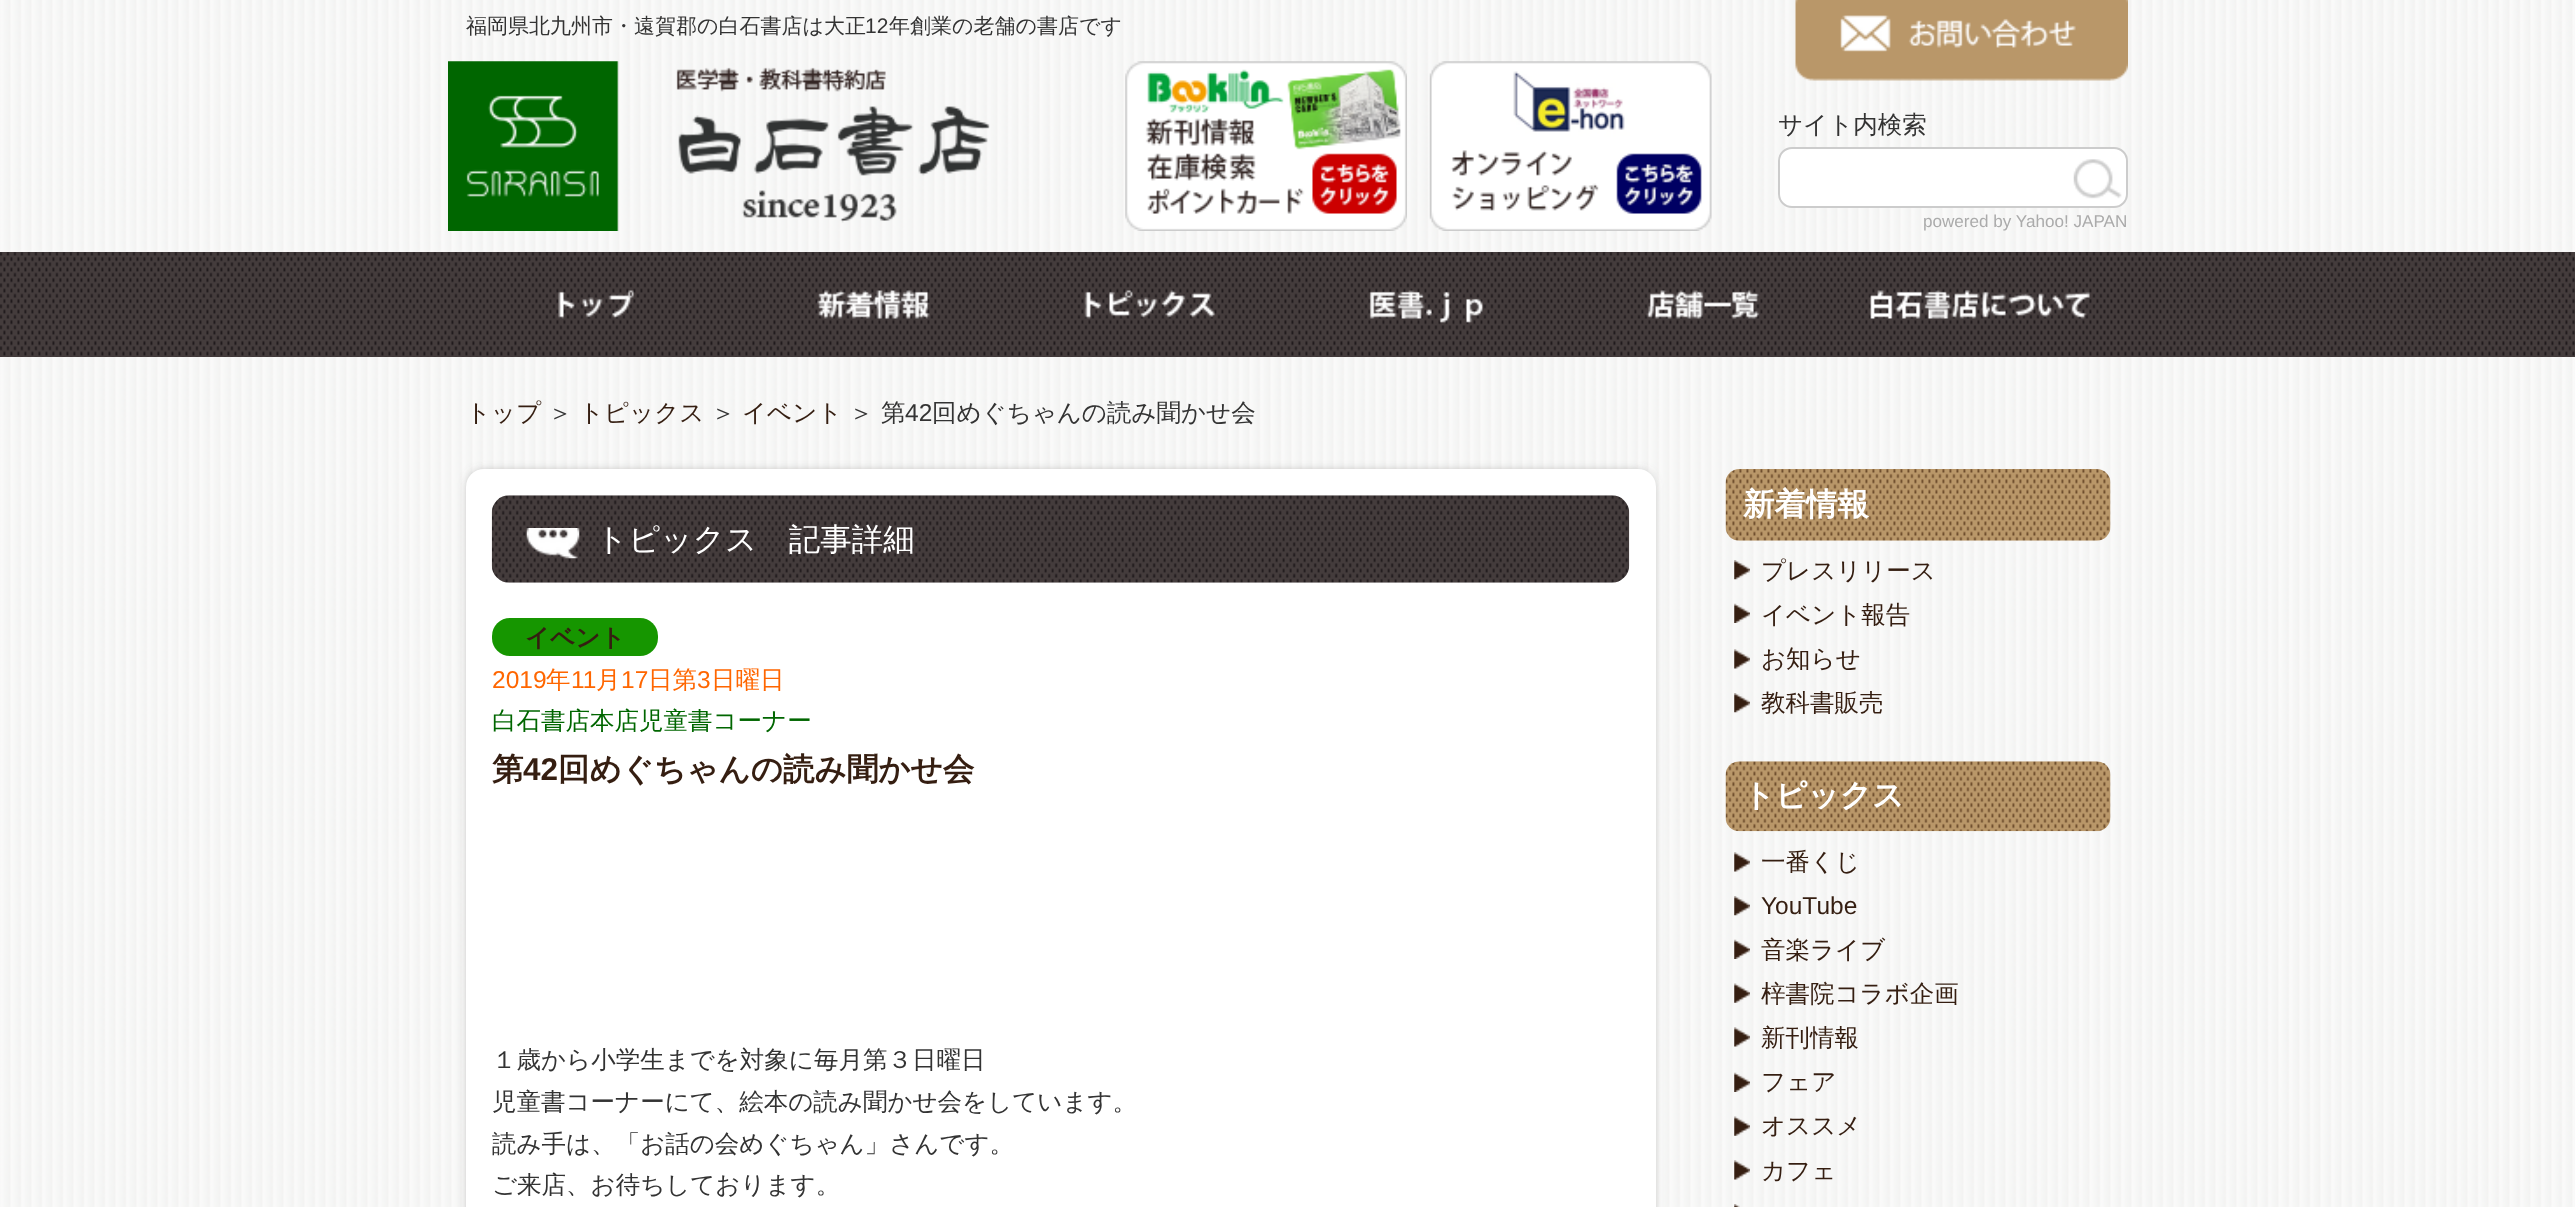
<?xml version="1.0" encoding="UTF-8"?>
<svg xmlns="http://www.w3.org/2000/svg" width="2575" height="1207">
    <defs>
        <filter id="blur1" x="-50%" y="-200%" width="200%" height="500%"><feGaussianBlur stdDeviation="6"/></filter>
    </defs>
    <rect width="100%" height="100%" fill="#FFFFFF"/>
    <image x="0" y="0" width="2575" height="1207" href="img_01.png"/>
    <text x="466" y="33" font-family="WenQuanYi Zen Hei" font-size="21" font-weight="500" fill="#333333">福岡県北九州市・遠賀郡の白石書店は大正</text>
    <text x="865" y="33" font-family="Liberation Sans" font-size="21" fill="#333333">12</text>
    <text x="889" y="33" font-family="WenQuanYi Zen Hei" font-size="21" font-weight="500" fill="#333333">年創業の老舗の書店です</text>
    <image x="1795" y="0" width="333" height="81" href="img_02.png"/>
    <image x="448" y="61" width="542" height="170" href="img_03.png"/>
    <image x="1125" y="61" width="282" height="170" href="img_04.png"/>
    <image x="1429" y="61" width="283" height="170" href="img_05.png"/>
    <text x="1778" y="133" font-family="WenQuanYi Zen Hei" font-size="24.5" font-weight="500" fill="#333333">サイト内検索</text>
    <rect x="1779" y="148" width="348" height="59" rx="13" fill="#FFFFFF" stroke="#CCCCCC" stroke-width="2"/>
    <image x="2073" y="159" width="49" height="40" href="img_06.png"/>
    <text x="1923" y="227" font-family="Liberation Sans" font-size="17.1" fill="#ABABAB">powered by Yahoo! JAPAN</text>
    <image x="0" y="252" width="2575" height="105" href="img_07.png"/>
    <image x="558" y="290" width="76" height="29" href="img_08.png"/>
    <image x="817" y="290" width="113" height="29" href="img_09.png"/>
    <image x="1084" y="290" width="131" height="29" href="img_10.png"/>
    <image x="1369" y="290" width="114" height="33" href="img_11.png"/>
    <image x="1646" y="290" width="114" height="29" href="img_12.png"/>
    <image x="1870" y="290" width="220" height="29" href="img_13.png"/>
    <text x="466" y="421" font-family="WenQuanYi Zen Hei" font-size="24.5" font-weight="500" fill="#351E11">トップ</text>
    <text x="548" y="421" font-family="WenQuanYi Zen Hei" font-size="24.5" font-weight="500" fill="#333333">＞</text>
    <text x="579" y="421" font-family="WenQuanYi Zen Hei" font-size="24.5" font-weight="500" fill="#351E11">トピックス</text>
    <text x="711" y="421" font-family="WenQuanYi Zen Hei" font-size="24.5" font-weight="500" fill="#333333">＞</text>
    <text x="742" y="421" font-family="WenQuanYi Zen Hei" font-size="24.5" font-weight="500" fill="#351E11">イベント</text>
    <text x="849" y="421" font-family="WenQuanYi Zen Hei" font-size="24.5" font-weight="500" fill="#333333">＞</text>
    <text x="881" y="421" font-family="WenQuanYi Zen Hei" font-size="24.5" font-weight="500" fill="#333333">第</text>
    <text x="905" y="421" font-family="Liberation Sans" font-size="24.5" fill="#333333">42</text>
    <text x="932" y="421" font-family="WenQuanYi Zen Hei" font-size="24.5" font-weight="500" fill="#333333">回めぐちゃんの読み聞かせ会</text>
    <rect x="471" y="474" width="1179" height="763" rx="12" fill="#767473" filter="url(#blur1)"/>
    <rect x="466" y="469" width="1190" height="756" rx="18" fill="#FFFFFF"/>
    <image x="491" y="495" width="1139" height="88" href="img_14.png"/>
    <image x="526" y="528" width="54" height="31" href="img_15.png"/>
    <text x="596" y="550" font-family="WenQuanYi Zen Hei" font-size="31.5" font-weight="500" fill="#FFFFFF">トピックス　記事詳細</text>
    <rect x="492" y="618" width="166" height="38" rx="18" fill="#169600"/>
    <text x="525" y="646" font-family="WenQuanYi Zen Hei" font-size="24.5" font-weight="700" fill="#351E11">イベント</text>
    <text x="492" y="688" font-family="Liberation Sans" font-size="24.5" fill="#FF6600">2019</text>
    <text x="546" y="688" font-family="WenQuanYi Zen Hei" font-size="24.5" font-weight="500" fill="#FF6600">年</text>
    <text x="571" y="688" font-family="Liberation Sans" font-size="24.5" fill="#FF6600">11</text>
    <text x="596" y="688" font-family="WenQuanYi Zen Hei" font-size="24.5" font-weight="500" fill="#FF6600">月</text>
    <text x="621" y="688" font-family="Liberation Sans" font-size="24.5" fill="#FF6600">17</text>
    <text x="648" y="688" font-family="WenQuanYi Zen Hei" font-size="24.5" font-weight="500" fill="#FF6600">日第</text>
    <text x="697" y="688" font-family="Liberation Sans" font-size="24.5" fill="#FF6600">3</text>
    <text x="711" y="688" font-family="WenQuanYi Zen Hei" font-size="24.5" font-weight="500" fill="#FF6600">日曜日</text>
    <text x="492" y="729" font-family="WenQuanYi Zen Hei" font-size="24.5" font-weight="500" fill="#006600">白石書店本店児童書コーナー</text>
    <text x="492" y="780" font-family="WenQuanYi Zen Hei" font-size="31.5" font-weight="700" fill="#351E11">第</text>
    <text x="523" y="780" font-family="Liberation Sans" font-size="31.5" font-weight="700" fill="#351E11">42</text>
    <text x="558" y="780" font-family="WenQuanYi Zen Hei" font-size="31.5" font-weight="700" fill="#351E11">回めぐちゃんの読み聞かせ会</text>
    <text font-family="WenQuanYi Zen Hei" font-size="24.5" font-weight="500" fill="#333333">
        <tspan x="492" y="1068">１歳から小学生までを対象に毎月第３日曜日</tspan>
        <tspan x="492" y="1110">児童書コーナーにて、絵本の読み聞かせ会をしています。</tspan>
        <tspan x="492" y="1152">読み手は、「お話の会めぐちゃん」さんです。</tspan>
        <tspan x="492" y="1193">ご来店、お待ちしております。</tspan>
    </text>
    <image x="1725" y="469" width="386" height="72" href="img_16.png"/>
    <text x="1743" y="515" font-family="WenQuanYi Zen Hei" font-size="31.5" font-weight="700" fill="#FFFFFF">新着情報</text>
    <image x="1734" y="560" width="16" height="20" href="img_17.png"/>
    <text x="1761" y="579" font-family="WenQuanYi Zen Hei" font-size="24.5" font-weight="500" fill="#351E11">プレスリリース</text>
    <image x="1734" y="603" width="16" height="20" href="img_18.png"/>
    <text x="1761" y="623" font-family="WenQuanYi Zen Hei" font-size="24.5" font-weight="500" fill="#351E11">イベント報告</text>
    <image x="1734" y="649" width="16" height="20" href="img_19.png"/>
    <text x="1761" y="667" font-family="WenQuanYi Zen Hei" font-size="24.5" font-weight="500" fill="#351E11">お知らせ</text>
    <image x="1734" y="693" width="16" height="20" href="img_20.png"/>
    <text x="1761" y="711" font-family="WenQuanYi Zen Hei" font-size="24.5" font-weight="500" fill="#351E11">教科書販売</text>
    <image x="1725" y="761" width="386" height="71" href="img_21.png"/>
    <text x="1743" y="806" font-family="WenQuanYi Zen Hei" font-size="31.5" font-weight="700" fill="#FFFFFF">トピックス</text>
    <image x="1734" y="852" width="16" height="20" href="img_22.png"/>
    <text x="1761" y="870" font-family="WenQuanYi Zen Hei" font-size="24.5" font-weight="500" fill="#351E11">一番くじ</text>
    <image x="1734" y="896" width="16" height="20" href="img_17.png"/>
    <text x="1761" y="914" font-family="Liberation Sans" font-size="24.5" fill="#351E11">YouTube</text>
    <image x="1734" y="939" width="16" height="20" href="img_18.png"/>
    <text x="1761" y="958" font-family="WenQuanYi Zen Hei" font-size="24.5" font-weight="500" fill="#351E11">音楽ライブ</text>
    <image x="1734" y="983" width="16" height="20" href="img_23.png"/>
    <text x="1761" y="1002" font-family="WenQuanYi Zen Hei" font-size="24.5" font-weight="500" fill="#351E11">梓書院コラボ企画</text>
    <image x="1734" y="1027" width="16" height="20" href="img_19.png"/>
    <text x="1761" y="1046" font-family="WenQuanYi Zen Hei" font-size="24.5" font-weight="500" fill="#351E11">新刊情報</text>
    <image x="1734" y="1072" width="16" height="20" href="img_24.png"/>
    <text x="1761" y="1090" font-family="WenQuanYi Zen Hei" font-size="24.5" font-weight="500" fill="#351E11">フェア</text>
    <image x="1734" y="1116" width="16" height="20" href="img_25.png"/>
    <text x="1761" y="1134" font-family="WenQuanYi Zen Hei" font-size="24.5" font-weight="500" fill="#351E11">オススメ</text>
    <image x="1734" y="1160" width="16" height="20" href="img_26.png"/>
    <text x="1761" y="1179" font-family="WenQuanYi Zen Hei" font-size="24.5" font-weight="500" fill="#351E11">カフェ</text>
    <image x="1734" y="1204" width="6" height="3" href="img_27.png"/>
</svg>
